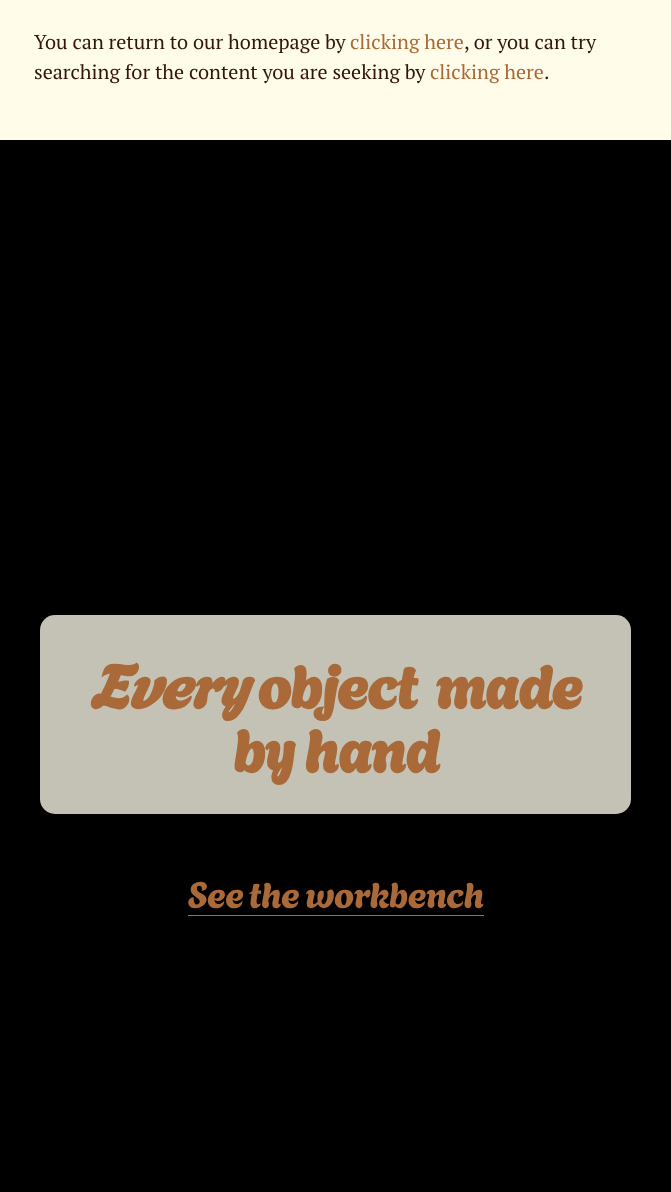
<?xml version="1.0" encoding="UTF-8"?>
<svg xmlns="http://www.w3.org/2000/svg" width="671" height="1192">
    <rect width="100%" height="100%" fill="#FFFCEA"/>
    <text x="34" y="49" font-family="PT Serif" font-size="20" fill="#331606">You can return to our homepage by</text>
    <text x="350" y="49" font-family="PT Serif" font-size="20" fill="#A96938">clicking here</text>
    <text x="464" y="49" font-family="PT Serif" font-size="20" fill="#331606">, or you can try</text>
    <text x="34" y="79" font-family="PT Serif" font-size="20" fill="#331606">searching for the content you are seeking by</text>
    <text x="430" y="79" font-family="PT Serif" font-size="20" fill="#A96938">clicking here</text>
    <text x="544" y="79" font-family="PT Serif" font-size="20" fill="#331606">.</text>
    <rect x="0" y="140" width="671" height="1052" fill="#000000"/>
    <rect x="40" y="615" width="591" height="199" rx="15" fill="#FFFCEA" fill-opacity="0.77"/>
    <text x="90" y="709" font-family="Agbalumo" font-size="60.5" font-weight="700" font-style="italic" letter-spacing="-1.25" fill="#A96938">Every</text>
    <text x="257" y="709" font-family="Agbalumo" font-size="60.5" font-weight="700" letter-spacing="-1.25" fill="#A96938" xml:space="preserve">object  made</text>
    <text x="233" y="773" font-family="Agbalumo" font-size="60.5" font-weight="700" letter-spacing="-1.25" fill="#A96938">by hand</text>
    <text x="188" y="908" font-family="Agbalumo" font-size="36.25" letter-spacing="-0.75" fill="#A96938">See the workbench</text>
    <rect x="188" y="915" width="296" height="1" fill="#A96938"/>
</svg>
